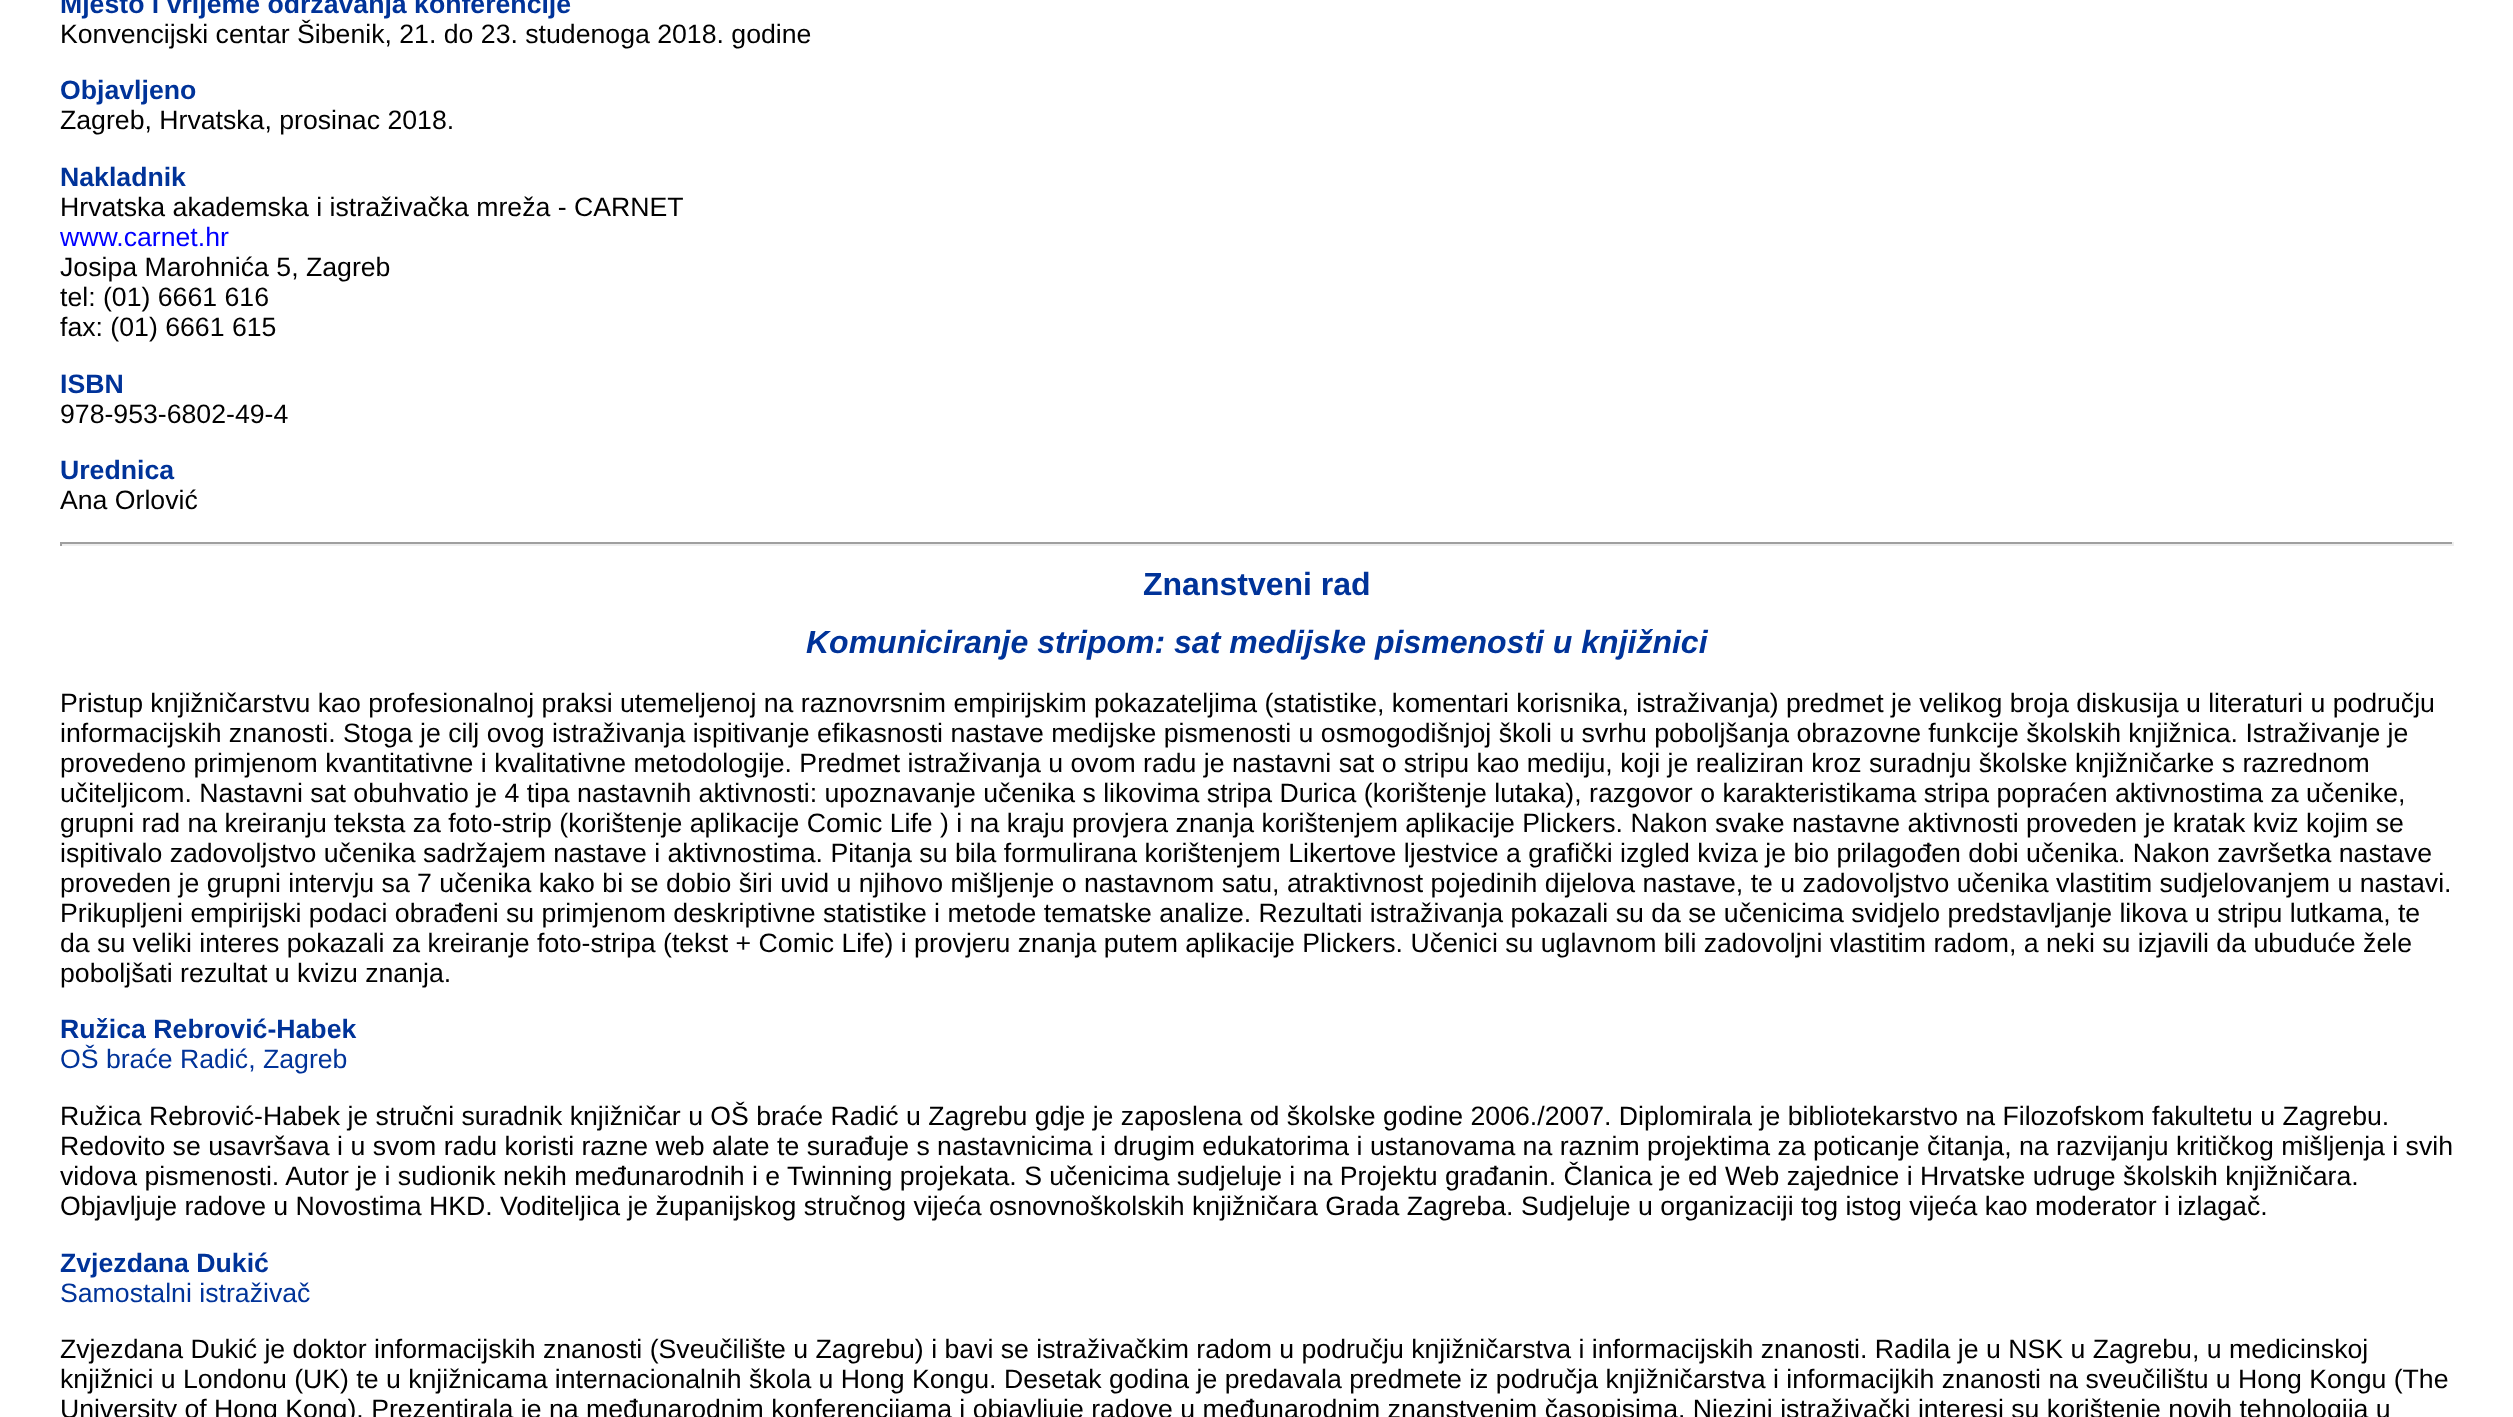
<?xml version="1.0" encoding="UTF-8"?>
<svg xmlns="http://www.w3.org/2000/svg" width="2513" height="1417">
    <rect width="100%" height="100%" fill="#FFFFFF"/>
    <text x="60" y="13" font-family="Liberation Sans" font-size="26.67" font-weight="700" fill="#003399">Mjesto i vrijeme održavanja konferencije</text>
    <text x="60" y="43" font-family="Liberation Sans" font-size="26.67" fill="#000000">Konvencijski centar Šibenik, 21. do 23. studenoga 2018. godine</text>
    <text x="60" y="99" font-family="Liberation Sans" font-size="26.67" font-weight="700" fill="#003399">Objavljeno</text>
    <text x="60" y="129" font-family="Liberation Sans" font-size="26.67" fill="#000000">Zagreb, Hrvatska, prosinac 2018.</text>
    <text x="60" y="186" font-family="Liberation Sans" font-size="26.67" font-weight="700" fill="#003399">Nakladnik</text>
    <text x="60" y="216" font-family="Liberation Sans" font-size="26.67" fill="#000000">Hrvatska akademska i istraživačka mreža - CARNET</text>
    <text x="60" y="246" font-family="Liberation Sans" font-size="26.67" fill="#0000FF">www.carnet.hr</text>
    <text font-family="Liberation Sans" font-size="26.67" fill="#000000">
        <tspan x="60" y="276">Josipa Marohnića 5, Zagreb</tspan>
        <tspan x="60" y="306">tel: (01) 6661 616</tspan>
        <tspan x="60" y="336">fax: (01) 6661 615</tspan>
    </text>
    <text x="60" y="393" font-family="Liberation Sans" font-size="26.67" font-weight="700" fill="#003399">ISBN</text>
    <text x="60" y="423" font-family="Liberation Sans" font-size="26.67" fill="#000000">978-953-6802-49-4</text>
    <text x="60" y="479" font-family="Liberation Sans" font-size="26.67" font-weight="700" fill="#003399">Urednica</text>
    <text x="60" y="509" font-family="Liberation Sans" font-size="26.67" fill="#000000">Ana Orlović</text>
    <rect x="60" y="542" width="2394" height="2" fill="#9F9F9F"/>
    <rect x="2452" y="542" width="2" height="4" fill="#EEEEEE"/>
    <rect x="60" y="544" width="2394" height="2" fill="#EEEEEE"/>
    <rect x="60" y="542" width="2" height="4" fill="#9F9F9F"/>
    <text x="1143" y="595" font-family="Liberation Sans" font-size="32" font-weight="700" fill="#003399">Znanstveni rad</text>
    <text x="806" y="653" font-family="Liberation Sans" font-size="32" font-weight="700" font-style="italic" fill="#003399">Komuniciranje stripom: sat medijske pismenosti u knjižnici</text>
    <text font-family="Liberation Sans" font-size="26.67" fill="#000000">
        <tspan x="60" y="712">Pristup knjižničarstvu kao profesionalnoj praksi utemeljenoj na raznovrsnim empirijskim pokazateljima (statistike, komentari korisnika, istraživanja) predmet je velikog broja diskusija u literaturi u području</tspan>
        <tspan x="60" y="742">informacijskih znanosti. Stoga je cilj ovog istraživanja ispitivanje efikasnosti nastave medijske pismenosti u osmogodišnjoj školi u svrhu poboljšanja obrazovne funkcije školskih knjižnica. Istraživanje je</tspan>
        <tspan x="60" y="772">provedeno primjenom kvantitativne i kvalitativne metodologije. Predmet istraživanja u ovom radu je nastavni sat o stripu kao mediju, koji je realiziran kroz suradnju školske knjižničarke s razrednom</tspan>
        <tspan x="60" y="802">učiteljicom. Nastavni sat obuhvatio je 4 tipa nastavnih aktivnosti: upoznavanje učenika s likovima stripa Durica (korištenje lutaka), razgovor o karakteristikama stripa popraćen aktivnostima za učenike,</tspan>
        <tspan x="60" y="832">grupni rad na kreiranju teksta za foto-strip (korištenje aplikacije Comic Life ) i na kraju provjera znanja korištenjem aplikacije Plickers. Nakon svake nastavne aktivnosti proveden je kratak kviz kojim se</tspan>
        <tspan x="60" y="862">ispitivalo zadovoljstvo učenika sadržajem nastave i aktivnostima. Pitanja su bila formulirana korištenjem Likertove ljestvice a grafički izgled kviza je bio prilagođen dobi učenika. Nakon završetka nastave</tspan>
        <tspan x="60" y="892">proveden je grupni intervju sa 7 učenika kako bi se dobio širi uvid u njihovo mišljenje o nastavnom satu, atraktivnost pojedinih dijelova nastave, te u zadovoljstvo učenika vlastitim sudjelovanjem u nastavi.</tspan>
        <tspan x="60" y="922">Prikupljeni empirijski podaci obrađeni su primjenom deskriptivne statistike i metode tematske analize. Rezultati istraživanja pokazali su da se učenicima svidjelo predstavljanje likova u stripu lutkama, te</tspan>
        <tspan x="60" y="952">da su veliki interes pokazali za kreiranje foto-stripa (tekst + Comic Life) i provjeru znanja putem aplikacije Plickers. Učenici su uglavnom bili zadovoljni vlastitim radom, a neki su izjavili da ubuduće žele</tspan>
        <tspan x="60" y="982">poboljšati rezultat u kvizu znanja.</tspan>
    </text>
    <text x="60" y="1038" font-family="Liberation Sans" font-size="26.67" font-weight="700" fill="#003399">Ružica Rebrović-Habek</text>
    <text x="60" y="1068" font-family="Liberation Sans" font-size="26.67" fill="#003399">OŠ braće Radić, Zagreb</text>
    <text font-family="Liberation Sans" font-size="26.67" fill="#000000">
        <tspan x="60" y="1125">Ružica Rebrović-Habek je stručni suradnik knjižničar u OŠ braće Radić u Zagrebu gdje je zaposlena od školske godine 2006./2007. Diplomirala je bibliotekarstvo na Filozofskom fakultetu u Zagrebu.</tspan>
        <tspan x="60" y="1155">Redovito se usavršava i u svom radu koristi razne web alate te surađuje s nastavnicima i drugim edukatorima i</tspan>
    </text>
    <text x="1370" y="1155" font-family="Liberation Sans" font-size="26.67" fill="#000000">ustanovama na raznim projektima za poticanje čitanja, na razvijanju kritičkog mišljenja i svih</text>
    <text font-family="Liberation Sans" font-size="26.67" fill="#000000">
        <tspan x="60" y="1185">vidova pismenosti. Autor je i sudionik nekih međunarodnih i e Twinning projekata. S učenicima sudjeluje i na Projektu građanin. Članica je ed Web zajednice i Hrvatske udruge školskih knjižničara.</tspan>
        <tspan x="60" y="1215">Objavljuje radove u Novostima HKD. Voditeljica je županijskog stručnog vijeća osnovnoškolskih knjižničara Grada Zagreba. Sudjeluje u organizaciji tog istog vijeća kao moderator i izlagač.</tspan>
    </text>
    <text x="60" y="1272" font-family="Liberation Sans" font-size="26.67" font-weight="700" fill="#003399">Zvjezdana Dukić</text>
    <text x="60" y="1302" font-family="Liberation Sans" font-size="26.67" fill="#003399">Samostalni istraživač</text>
    <text font-family="Liberation Sans" font-size="26.67" fill="#000000">
        <tspan x="60" y="1358">Zvjezdana Dukić je doktor informacijskih znanosti (Sveučilište u Zagrebu) i bavi se istraživačkim radom u području knjižničarstva i informacijskih znanosti. Radila je u NSK u Zagrebu, u medicinskoj</tspan>
        <tspan x="60" y="1388">knjižnici u Londonu (UK) te u knjižnicama internacionalnih škola u Hong Kongu. Desetak godina je predavala predmete iz područja knjižničarstva i informacijkih znanosti na sveučilištu u Hong Kongu (The</tspan>
        <tspan x="60" y="1418">University of Hong Kong). Prezentirala je na međunarodnim konferencijama i objavljuje radove u međunarodnim znanstvenim časopisima. Njezini istraživački interesi su korištenje novih tehnologija u</tspan>
    </text>
</svg>
